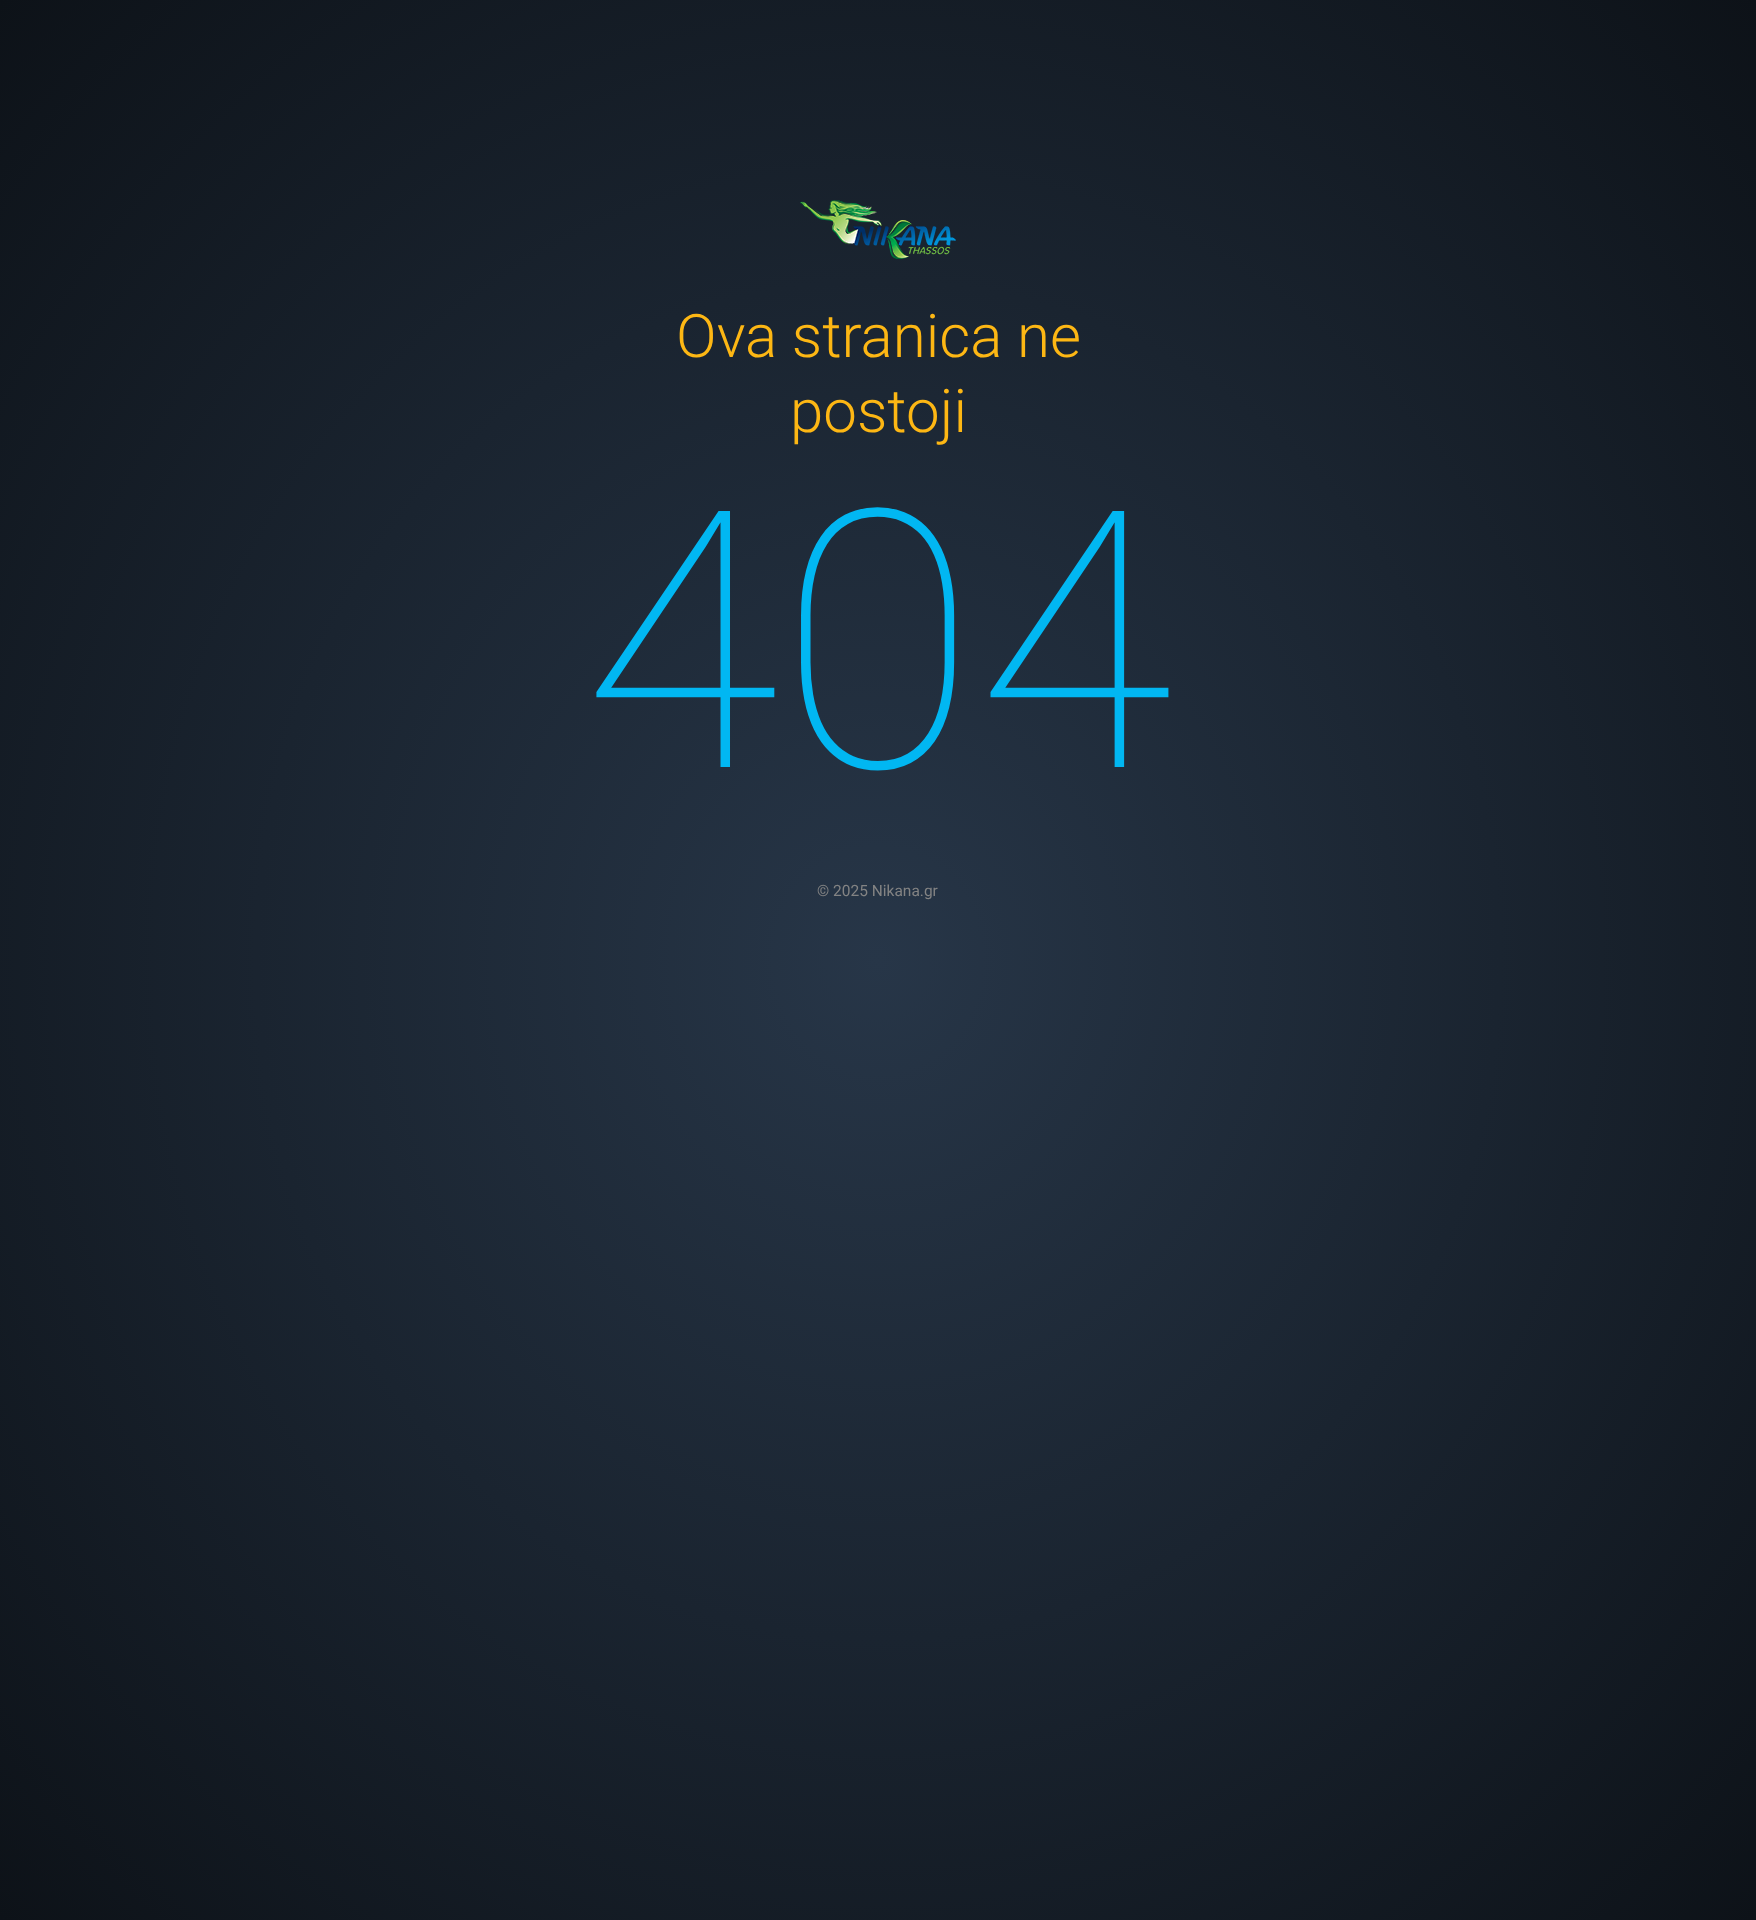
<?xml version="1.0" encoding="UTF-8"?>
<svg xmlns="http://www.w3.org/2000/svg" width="1756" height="1920">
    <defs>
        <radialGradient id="g1" gradientUnits="userSpaceOnUse" cx="0" cy="0" r="1" gradientTransform="matrix(1242 0 0 1358 878 960)"><stop offset="0" stop-color="#273648"/><stop offset="1" stop-color="#0D1218"/></radialGradient>
    </defs>
    <rect width="100%" height="100%" fill="#FFFFFF"/>
    <rect x="0" y="0" width="1756" height="1920" fill="url(#g1)"/>
    <image x="800" y="200" width="156" height="59" href="img_01.png"/>
    <text x="676" y="357" font-family="Roboto" font-size="60" font-weight="300" fill="#FDB714">Ova stranica ne</text>
    <text x="790" y="432" font-family="Roboto" font-size="60" font-weight="300" fill="#FDB714">postoji</text>
    <text x="582" y="767" font-family="Roboto" font-size="360" font-weight="100" fill="#01B7F2">404</text>
    <text x="817" y="896" font-family="Roboto" font-size="15.5" fill="#838383">© 2025 Nikana.gr</text>
</svg>
